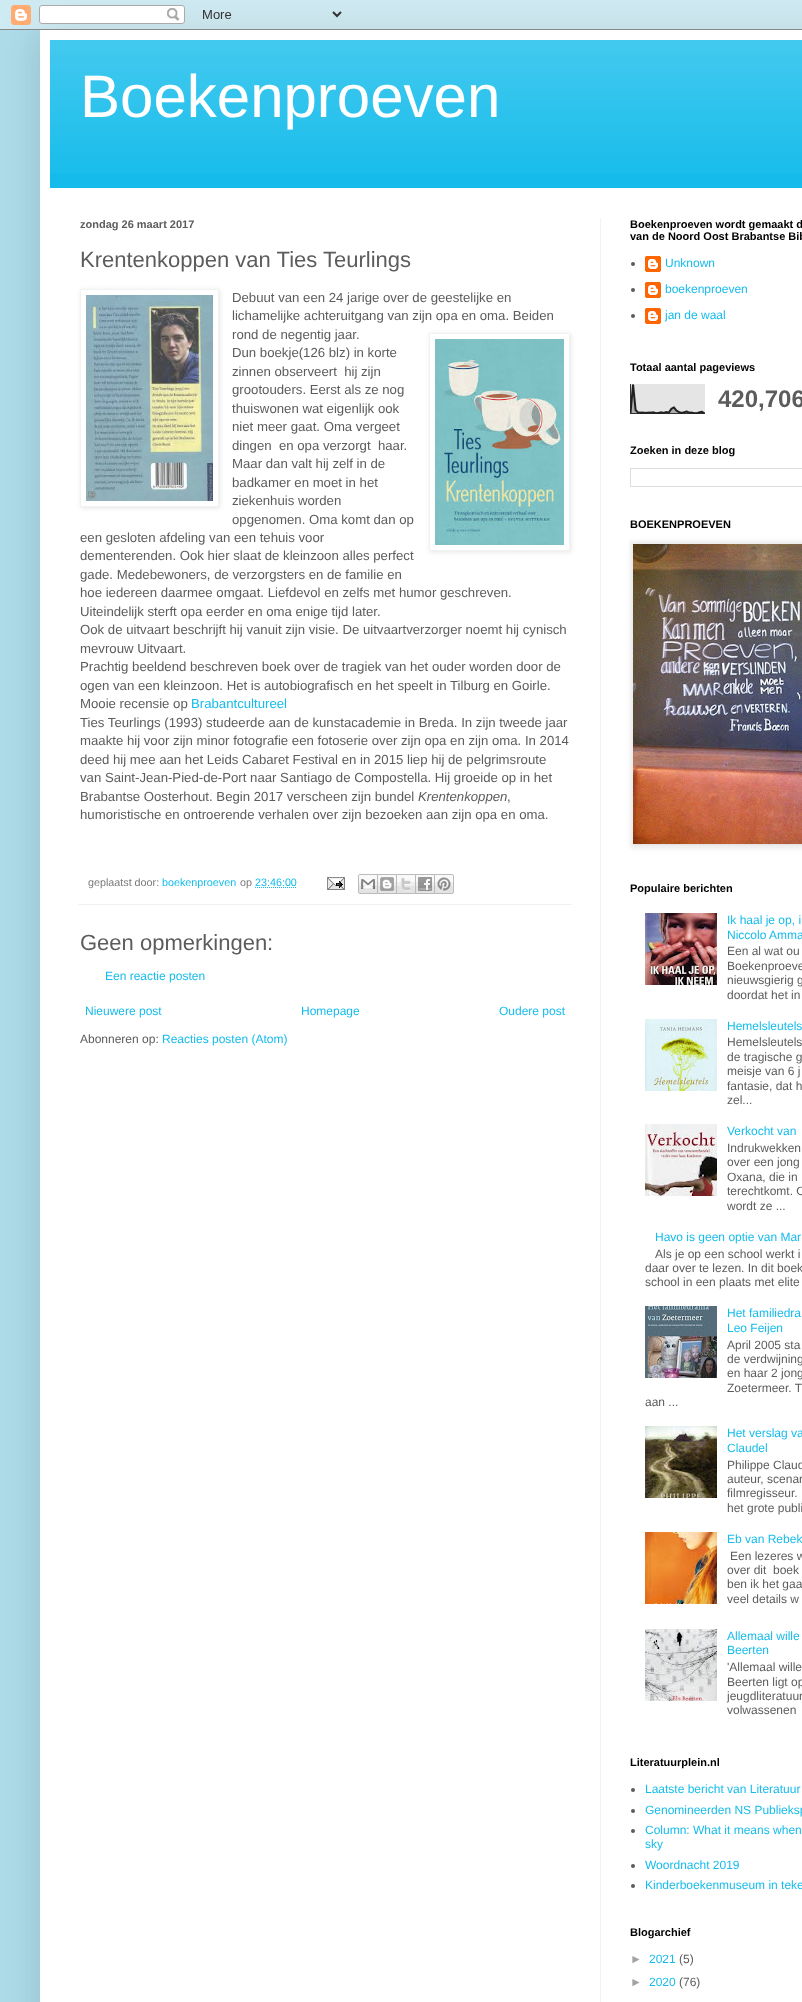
<?xml version="1.0" encoding="UTF-8"?>
<svg xmlns="http://www.w3.org/2000/svg" width="802" height="2002">
    <defs>
        <filter id="blur1" x="-50%" y="-200%" width="200%" height="500%"><feGaussianBlur stdDeviation="20"/></filter>
        <clipPath id="clip1"><path d="M 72 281 H 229 V 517 H 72 Z M 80 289 H 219 V 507 H 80 Z" clip-rule="evenodd"/></clipPath>
        <filter id="blur2" x="-50%" y="-200%" width="200%" height="500%"><feGaussianBlur stdDeviation="2.5"/></filter>
        <clipPath id="clip2"><path d="M 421 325 H 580 V 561 H 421 Z M 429 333 H 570 V 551 H 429 Z" clip-rule="evenodd"/></clipPath>
    </defs>
    <rect width="100%" height="100%" fill="#AEDCE9"/>
    <rect x="40" y="30" width="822" height="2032" fill="#000000" fill-opacity="0.15" filter="url(#blur1)"/>
    <image x="0" y="0" width="802" height="30" href="img_01.png"/>
    <rect x="40" y="30" width="762" height="1972" fill="#FFFFFF"/>
    <rect x="50" y="40" width="752" height="148" fill="#15BCEB"/>
    <image x="50" y="40" width="752" height="133" href="img_02.png"/>
    <text x="80" y="117" font-family="Liberation Sans" font-size="60" fill="#FFFFFF">Boekenproeven</text>
    <rect x="600" y="218" width="1" height="1784" fill="#F2F2F2"/>
    <text x="80" y="228" font-family="Liberation Sans" font-size="11" font-weight="700" fill="#5C5C5C">zondag 26 maart 2017</text>
    <text x="80" y="267" font-family="Liberation Sans" font-size="22" fill="#5C5C5C">Krentenkoppen van Ties Teurlings</text>
    <g clip-path="url(#clip1)">
        <rect x="81" y="290" width="139" height="218" fill="#000000" fill-opacity="0.1" filter="url(#blur2)"/>
    </g>
    <rect x="80.5" y="289.5" width="138" height="217" fill="none" stroke="#F2F2F2"/>
    <image x="86" y="295" width="127" height="206" href="img_03.png"/>
    <text font-family="Liberation Sans" font-size="13.2" fill="#5C5C5C">
        <tspan x="232" y="302">Debuut van een 24 jarige over de geestelijke en</tspan>
        <tspan x="232" y="320">lichamelijke achteruitgang van zijn opa en oma. Beiden</tspan>
        <tspan x="232" y="339">rond de negentig jaar.</tspan>
    </text>
    <g clip-path="url(#clip2)">
        <rect x="430" y="334" width="141" height="218" fill="#000000" fill-opacity="0.1" filter="url(#blur2)"/>
    </g>
    <rect x="429.5" y="333.5" width="140" height="217" fill="none" stroke="#F2F2F2"/>
    <image x="435" y="339" width="129" height="206" href="img_04.png"/>
    <text font-family="Liberation Sans" font-size="13.2" fill="#5C5C5C" xml:space="preserve"><tspan x="232" y="357">Dun boekje(126 blz) in korte</tspan><tspan x="232" y="376">zinnen observeert  hij zijn</tspan><tspan x="232" y="394">grootouders. Eerst als ze nog</tspan><tspan x="232" y="413">thuiswonen wat eigenlijk ook</tspan><tspan x="232" y="431">niet meer gaat. Oma vergeet</tspan><tspan x="232" y="450">dingen  en opa verzorgt  haar.</tspan><tspan x="232" y="468">Maar dan valt hij zelf in de</tspan><tspan x="232" y="487">badkamer en moet in het</tspan><tspan x="232" y="505">ziekenhuis worden</tspan><tspan x="232" y="524">opgenomen. Oma komt dan op</tspan></text>
    <text font-family="Liberation Sans" font-size="13.2" fill="#5C5C5C">
        <tspan x="80" y="542">een gesloten afdeling van een tehuis voor</tspan>
        <tspan x="80" y="560">dementerenden. Ook hier slaat de kleinzoon alles perfect</tspan>
        <tspan x="80" y="579">gade. Medebewoners, de verzorgsters en de familie en</tspan>
        <tspan x="80" y="597">hoe iedereen daarmee omgaat. Liefdevol en zelfs met humor geschreven.</tspan>
        <tspan x="80" y="616">Uiteindelijk sterft opa eerder en oma enige tijd later.</tspan>
        <tspan x="80" y="634">Ook de uitvaart beschrijft hij vanuit zijn visie. De uitvaartverzorger noemt hij cynisch</tspan>
        <tspan x="80" y="653">mevrouw Uitvaart.</tspan>
        <tspan x="80" y="671">Prachtig beeldend beschreven boek over de tragiek van het ouder worden door de</tspan>
        <tspan x="80" y="690">ogen van een kleinzoon. Het is autobiografisch en het speelt in Tilburg en Goirle.</tspan>
        <tspan x="80" y="708">Mooie recensie op</tspan>
    </text>
    <text x="191" y="708" font-family="Liberation Sans" font-size="13.2" fill="#15BCEB">Brabantcultureel</text>
    <text font-family="Liberation Sans" font-size="13.2" fill="#5C5C5C">
        <tspan x="80" y="727">Ties Teurlings (1993) studeerde aan de kunstacademie in Breda. In zijn tweede jaar</tspan>
        <tspan x="80" y="745">maakte hij voor zijn minor fotografie een fotoserie over</tspan>
    </text>
    <text x="401" y="745" font-family="Liberation Sans" font-size="13.2" fill="#5C5C5C">zijn opa en zijn oma. In 2014</text>
    <text font-family="Liberation Sans" font-size="13.2" fill="#5C5C5C">
        <tspan x="80" y="764">deed hij mee aan het Leids Cabaret Festival en in 2015 liep hij de pelgrimsroute</tspan>
        <tspan x="80" y="782">van Saint-Jean-Pied-de-Port naar Santiago de Compostella. Hij groeide op in het</tspan>
        <tspan x="80" y="801">Brabantse Oosterhout. Begin 2017 verscheen zijn bundel</tspan>
    </text>
    <text x="418" y="801" font-family="Liberation Sans" font-size="13.2" font-style="italic" fill="#5C5C5C">Krentenkoppen</text>
    <text x="507" y="801" font-family="Liberation Sans" font-size="13.2" fill="#5C5C5C">,</text>
    <text x="80" y="819" font-family="Liberation Sans" font-size="13.2" fill="#5C5C5C">humoristische en ontroerende verhalen over zijn bezoeken aan zijn opa en oma.</text>
    <rect x="78" y="904" width="494" height="1" fill="#F2F2F2"/>
    <text x="88" y="886" font-family="Liberation Sans" font-size="10.75" fill="#7A7A7A">geplaatst door:</text>
    <text x="162" y="886" font-family="Liberation Sans" font-size="10.75" fill="#15BCEB">boekenproeven</text>
    <text x="240" y="886" font-family="Liberation Sans" font-size="10.75" fill="#7A7A7A">op</text>
    <path d="M 255 887.5 H 297" fill="none" stroke="#15BCEB" stroke-dasharray="1 1"/>
    <text x="255" y="886" font-family="Liberation Sans" font-size="10.75" fill="#15BCEB">23:46:00</text>
    <image x="327" y="877" width="18" height="13" href="img_05.png"/>
    <image x="358" y="874" width="20" height="20" href="img_06.png"/>
    <image x="378" y="874" width="19" height="20" href="img_07.png"/>
    <image x="397" y="874" width="19" height="20" href="img_08.png"/>
    <image x="416" y="874" width="19" height="20" href="img_09.png"/>
    <image x="435" y="874" width="19" height="20" href="img_10.png"/>
    <text x="80" y="950" font-family="Liberation Sans" font-size="22" fill="#5C5C5C">Geen opmerkingen:</text>
    <text x="105" y="980" font-family="Liberation Sans" font-size="12" fill="#15BCEB">Een reactie posten</text>
    <text x="85" y="1015" font-family="Liberation Sans" font-size="12" fill="#15BCEB">Nieuwere post</text>
    <text x="301" y="1015" font-family="Liberation Sans" font-size="12" fill="#15BCEB">Homepage</text>
    <text x="499" y="1015" font-family="Liberation Sans" font-size="12" fill="#15BCEB">Oudere post</text>
    <text x="80" y="1043" font-family="Liberation Sans" font-size="12" fill="#5C5C5C">Abonneren op:</text>
    <text x="162" y="1043" font-family="Liberation Sans" font-size="12" fill="#15BCEB">Reacties posten (Atom)</text>
    <text font-family="Liberation Sans" font-size="11" font-weight="700" fill="#000000">
        <tspan x="630" y="228">Boekenproeven wordt gemaakt d</tspan>
        <tspan x="630" y="240">van de Noord Oost Brabantse Bib</tspan>
    </text>
    <circle cx="633" cy="264" r="2" fill="#5C5C5C"/>
    <image x="645" y="256" width="16" height="16" href="img_11.png"/>
    <text x="665" y="267" font-family="Liberation Sans" font-size="12" fill="#15BCEB">Unknown</text>
    <circle cx="633" cy="290" r="2" fill="#5C5C5C"/>
    <image x="645" y="282" width="16" height="16" href="img_11.png"/>
    <text x="665" y="293" font-family="Liberation Sans" font-size="12" fill="#15BCEB">boekenproeven</text>
    <circle cx="633" cy="316" r="2" fill="#5C5C5C"/>
    <image x="645" y="308" width="16" height="16" href="img_11.png"/>
    <text x="665" y="319" font-family="Liberation Sans" font-size="12" fill="#15BCEB">jan de waal</text>
    <text x="630" y="371" font-family="Liberation Sans" font-size="11" font-weight="700" fill="#000000">Totaal aantal pageviews</text>
    <image x="630" y="384" width="75" height="30" href="img_12.png"/>
    <text x="718" y="407" font-family="Liberation Sans" font-size="24" font-weight="700" fill="#5C5C5C">420,706</text>
    <text x="630" y="454" font-family="Liberation Sans" font-size="11" font-weight="700" fill="#000000">Zoeken in deze blog</text>
    <rect x="630.5" y="468.5" width="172" height="18" fill="none" stroke="#DDDDDD"/>
    <text x="630" y="528" font-family="Liberation Sans" font-size="11" font-weight="700" fill="#000000">BOEKENPROEVEN</text>
    <rect x="631" y="542" width="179" height="306" fill="#000000" fill-opacity="0.1" filter="url(#blur2)"/>
    <rect x="630.5" y="541.5" width="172" height="305" fill="none" stroke="#F2F2F2"/>
    <image x="633" y="544" width="169" height="300" href="img_13.png"/>
    <text x="630" y="892" font-family="Liberation Sans" font-size="11" font-weight="700" fill="#000000">Populaire berichten</text>
    <image x="645" y="913" width="72" height="72" href="img_14.png"/>
    <text font-family="Liberation Sans" font-size="12" fill="#15BCEB">
        <tspan x="727" y="924">Ik haal je op, i</tspan>
        <tspan x="727" y="939">Niccolo Amma</tspan>
    </text>
    <text font-family="Liberation Sans" font-size="12" fill="#5C5C5C">
        <tspan x="727" y="955">Een al wat ou</tspan>
        <tspan x="727" y="970">Boekenproeve</tspan>
        <tspan x="727" y="984">nieuwsgierig g</tspan>
        <tspan x="727" y="999">doordat het in</tspan>
    </text>
    <image x="645" y="1019" width="72" height="72" href="img_15.png"/>
    <text x="727" y="1030" font-family="Liberation Sans" font-size="12" fill="#15BCEB">Hemelsleutels</text>
    <text font-family="Liberation Sans" font-size="12" fill="#5C5C5C">
        <tspan x="727" y="1046">Hemelsleutels</tspan>
        <tspan x="727" y="1061">de tragische g</tspan>
        <tspan x="727" y="1075">meisje van 6 j</tspan>
        <tspan x="727" y="1090">fantasie, dat h</tspan>
        <tspan x="727" y="1104">zel...</tspan>
    </text>
    <image x="645" y="1124" width="72" height="72" href="img_16.png"/>
    <text x="727" y="1135" font-family="Liberation Sans" font-size="12" fill="#15BCEB">Verkocht van</text>
    <text font-family="Liberation Sans" font-size="12" fill="#5C5C5C">
        <tspan x="727" y="1152">Indrukwekken</tspan>
        <tspan x="727" y="1166">over een jong</tspan>
        <tspan x="727" y="1181">Oxana, die in</tspan>
        <tspan x="727" y="1195">terechtkomt. O</tspan>
        <tspan x="727" y="1210">wordt ze ...</tspan>
    </text>
    <text x="655" y="1241" font-family="Liberation Sans" font-size="12" fill="#15BCEB">Havo is geen optie van Mar</text>
    <text x="655" y="1258" font-family="Liberation Sans" font-size="12" fill="#5C5C5C">Als je op een school werkt i</text>
    <text font-family="Liberation Sans" font-size="12" fill="#5C5C5C">
        <tspan x="645" y="1272">daar over te lezen. In dit boek</tspan>
        <tspan x="645" y="1286">school in een plaats met elite</tspan>
    </text>
    <image x="645" y="1306" width="72" height="72" href="img_17.png"/>
    <text font-family="Liberation Sans" font-size="12" fill="#15BCEB">
        <tspan x="727" y="1317">Het familiedra</tspan>
        <tspan x="727" y="1332">Leo Feijen</tspan>
    </text>
    <text font-family="Liberation Sans" font-size="12" fill="#5C5C5C">
        <tspan x="727" y="1349">April 2005 sta</tspan>
        <tspan x="727" y="1363">de verdwijning</tspan>
        <tspan x="727" y="1377">en haar 2 jong</tspan>
        <tspan x="727" y="1392">Zoetermeer. T</tspan>
    </text>
    <text x="645" y="1406" font-family="Liberation Sans" font-size="12" fill="#5C5C5C">aan ...</text>
    <image x="645" y="1426" width="72" height="72" href="img_18.png"/>
    <text font-family="Liberation Sans" font-size="12" fill="#15BCEB">
        <tspan x="727" y="1437">Het verslag va</tspan>
        <tspan x="727" y="1452">Claudel</tspan>
    </text>
    <text font-family="Liberation Sans" font-size="12" fill="#5C5C5C">
        <tspan x="727" y="1469">Philippe Claud</tspan>
        <tspan x="727" y="1483">auteur, scenar</tspan>
        <tspan x="727" y="1497">filmregisseur.</tspan>
        <tspan x="727" y="1512">het grote publi</tspan>
    </text>
    <image x="645" y="1532" width="72" height="72" href="img_19.png"/>
    <text x="727" y="1543" font-family="Liberation Sans" font-size="12" fill="#15BCEB">Eb van Rebek</text>
    <text x="730" y="1560" font-family="Liberation Sans" font-size="12" fill="#5C5C5C">Een lezeres w</text>
    <text font-family="Liberation Sans" font-size="12" fill="#5C5C5C" xml:space="preserve"><tspan x="727" y="1574">over dit  boek</tspan><tspan x="727" y="1588">ben ik het gaa</tspan><tspan x="727" y="1603">veel details w</tspan></text>
    <image x="645" y="1629" width="72" height="72" href="img_20.png"/>
    <text font-family="Liberation Sans" font-size="12" fill="#15BCEB">
        <tspan x="727" y="1640">Allemaal wille</tspan>
        <tspan x="727" y="1654">Beerten</tspan>
    </text>
    <text font-family="Liberation Sans" font-size="12" fill="#5C5C5C">
        <tspan x="727" y="1671">'Allemaal wille</tspan>
        <tspan x="727" y="1686">Beerten ligt op</tspan>
        <tspan x="727" y="1700">jeugdliteratuur</tspan>
        <tspan x="727" y="1714">volwassenen</tspan>
    </text>
    <text x="630" y="1766" font-family="Liberation Sans" font-size="11" font-weight="700" fill="#000000">Literatuurplein.nl</text>
    <circle cx="633" cy="1790" r="2" fill="#5C5C5C"/>
    <text x="645" y="1793" font-family="Liberation Sans" font-size="12" fill="#15BCEB">Laatste bericht van Literatuur</text>
    <circle cx="633" cy="1811" r="2" fill="#5C5C5C"/>
    <text x="645" y="1814" font-family="Liberation Sans" font-size="12" fill="#15BCEB">Genomineerden NS Publieksp</text>
    <circle cx="633" cy="1831" r="2" fill="#5C5C5C"/>
    <text font-family="Liberation Sans" font-size="12" fill="#15BCEB">
        <tspan x="645" y="1834">Column: What it means when</tspan>
        <tspan x="645" y="1848">sky</tspan>
    </text>
    <circle cx="633" cy="1866" r="2" fill="#5C5C5C"/>
    <text x="645" y="1869" font-family="Liberation Sans" font-size="12" fill="#15BCEB">Woordnacht 2019</text>
    <circle cx="633" cy="1886" r="2" fill="#5C5C5C"/>
    <text x="645" y="1889" font-family="Liberation Sans" font-size="12" fill="#15BCEB">Kinderboekenmuseum in teke</text>
    <text x="630" y="1936" font-family="Liberation Sans" font-size="11" font-weight="700" fill="#000000">Blogarchief</text>
    <text x="630" y="1963" font-family="Liberation Sans" font-size="12" fill="#A3A3A3">►</text>
    <text x="649" y="1963" font-family="Liberation Sans" font-size="12" fill="#15BCEB">2021</text>
    <text x="679" y="1963" font-family="Liberation Sans" font-size="12" fill="#5C5C5C">(5)</text>
    <text x="630" y="1986" font-family="Liberation Sans" font-size="12" fill="#A3A3A3">►</text>
    <text x="649" y="1986" font-family="Liberation Sans" font-size="12" fill="#15BCEB">2020</text>
    <text x="679" y="1986" font-family="Liberation Sans" font-size="12" fill="#5C5C5C">(76)</text>
</svg>
